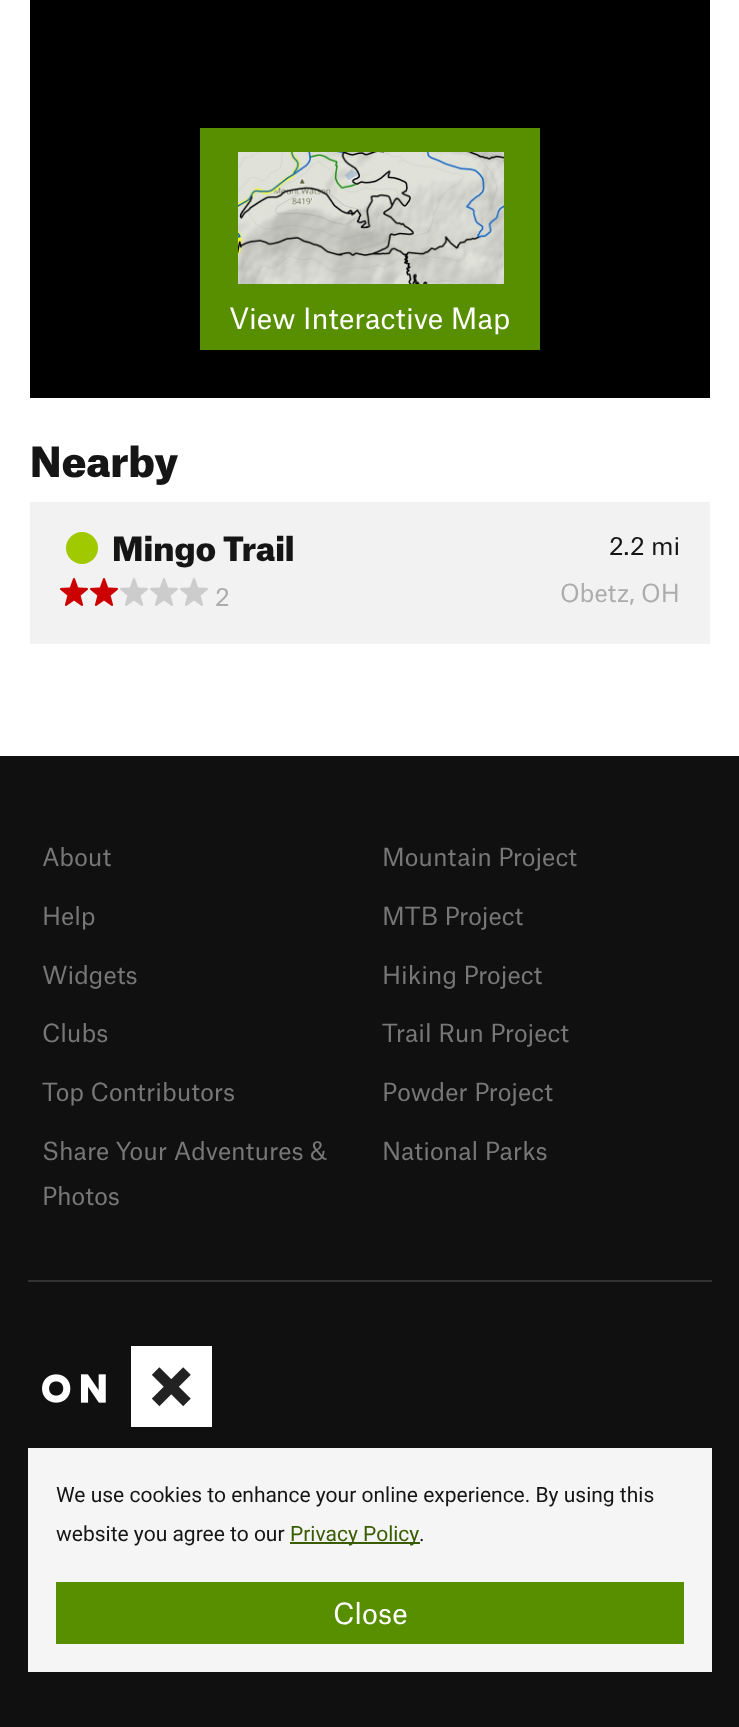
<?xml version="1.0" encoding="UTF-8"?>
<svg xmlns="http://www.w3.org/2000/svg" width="739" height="1727">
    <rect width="100%" height="100%" fill="#FFFFFF"/>
    <rect x="30" y="0" width="680" height="398" fill="#000000"/>
    <rect x="200" y="128" width="340" height="222" fill="#588F00"/>
    <image x="238" y="152" width="266" height="132" href="img_01.png"/>
    <text x="229" y="329" font-family="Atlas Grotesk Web" font-size="28" fill="#FFFFFF">View Interactive Map</text>
    <text x="30" y="477" font-family="Atlas Grotesk Web" font-size="40" font-weight="900" fill="#151515">Nearby</text>
    <rect x="30" y="502" width="680" height="142" fill="#F2F2F2"/>
    <text x="112" y="561" font-family="Atlas Grotesk Web" font-size="32" font-weight="900" fill="#151515">Mingo Trail</text>
    <circle cx="82" cy="548" r="16" fill="#A1C900"/>
    <text x="609" y="555" font-family="Atlas Grotesk Web" font-size="24" fill="#151515">2.2</text>
    <text x="651" y="555" font-family="Atlas Grotesk Web" font-size="24" fill="#151515">mi</text>
    <image x="60" y="578" width="28" height="28" href="img_02.png"/>
    <image x="90" y="578" width="28" height="28" href="img_02.png"/>
    <image x="120" y="578" width="28" height="28" href="img_03.png"/>
    <image x="150" y="578" width="28" height="28" href="img_03.png"/>
    <image x="180" y="578" width="28" height="28" href="img_03.png"/>
    <text x="215" y="606" font-family="Atlas Grotesk Web" font-size="24" fill="#ACACAC">2</text>
    <text x="560" y="602" font-family="Atlas Grotesk Web" font-size="24" fill="#ACACAC">Obetz, OH</text>
    <rect x="0" y="756" width="739" height="971" fill="#101010"/>
    <rect x="28" y="1280" width="684" height="2" fill="#333333"/>
    <text x="42" y="866" font-family="Atlas Grotesk Web" font-size="24" fill="#777777">About</text>
    <text x="382" y="866" font-family="Atlas Grotesk Web" font-size="24" fill="#777777">Mountain Project</text>
    <text x="42" y="925" font-family="Atlas Grotesk Web" font-size="24" fill="#777777">Help</text>
    <text x="382" y="925" font-family="Atlas Grotesk Web" font-size="24" fill="#777777">MTB Project</text>
    <text x="42" y="984" font-family="Atlas Grotesk Web" font-size="24" fill="#777777">Widgets</text>
    <text x="382" y="984" font-family="Atlas Grotesk Web" font-size="24" fill="#777777">Hiking Project</text>
    <text x="42" y="1042" font-family="Atlas Grotesk Web" font-size="24" fill="#777777">Clubs</text>
    <text x="382" y="1042" font-family="Atlas Grotesk Web" font-size="24" fill="#777777">Trail Run Project</text>
    <text x="42" y="1101" font-family="Atlas Grotesk Web" font-size="24" fill="#777777">Top Contributors</text>
    <text x="382" y="1101" font-family="Atlas Grotesk Web" font-size="24" fill="#777777">Powder Project</text>
    <text font-family="Atlas Grotesk Web" font-size="24" fill="#777777">
        <tspan x="42" y="1160">Share Your Adventures &amp;</tspan>
        <tspan x="42" y="1205">Photos</tspan>
    </text>
    <text x="382" y="1160" font-family="Atlas Grotesk Web" font-size="24" fill="#777777">National Parks</text>
    <image x="42" y="1346" width="170" height="81" href="img_04.png"/>
    <rect x="28" y="1448" width="684" height="224" fill="#F5F5F5"/>
    <text font-family="Roboto" font-size="21" fill="#151515">
        <tspan x="56" y="1502">We use cookies to enhance your online experience. By using this</tspan>
        <tspan x="56" y="1541">website you agree to our</tspan>
    </text>
    <rect x="290" y="1542" width="130" height="2" fill="#395C00"/>
    <text x="290" y="1541" font-family="Roboto" font-size="21" fill="#395C00">Privacy Policy</text>
    <text x="419" y="1541" font-family="Roboto" font-size="21" fill="#151515">.</text>
    <rect x="56" y="1582" width="628" height="62" fill="#588F00"/>
    <text x="333" y="1624" font-family="Atlas Grotesk Web" font-size="28" fill="#FFFFFF">Close</text>
</svg>
